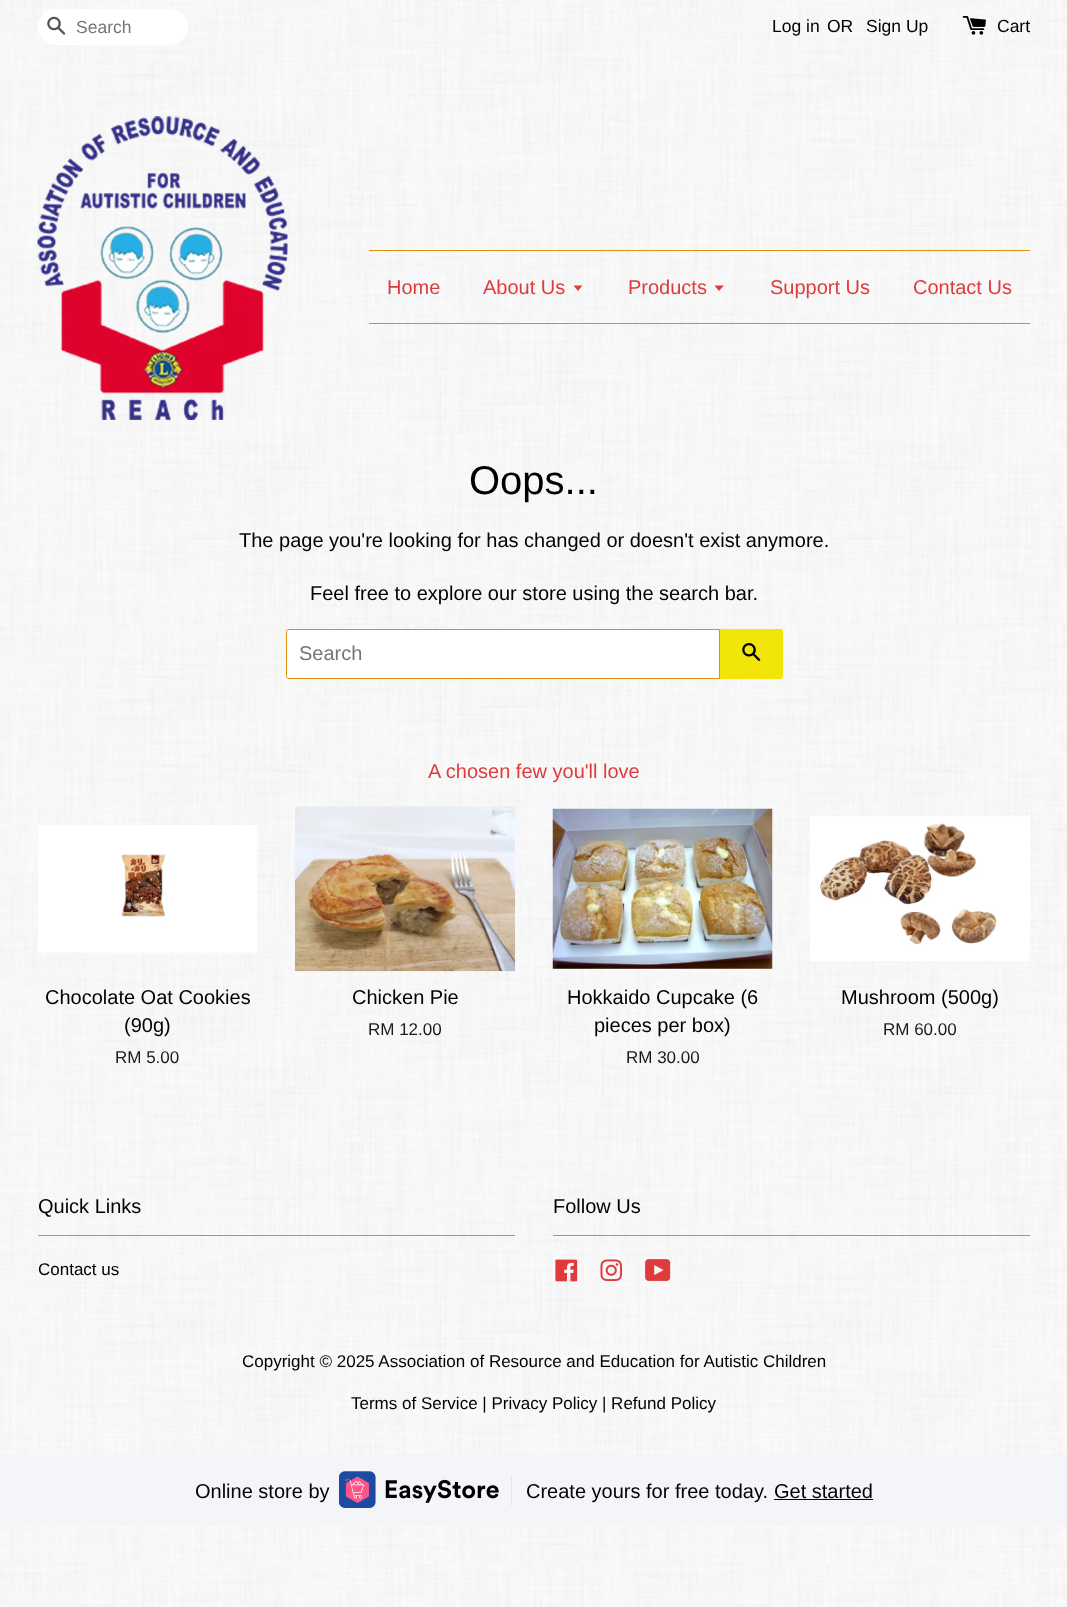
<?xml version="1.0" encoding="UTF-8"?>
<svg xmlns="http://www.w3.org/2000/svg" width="1067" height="1607">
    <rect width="100%" height="100%" fill="#FFFFFF"/>
    <image x="0" y="0" width="1067" height="1607" href="img_01.png"/>
    <rect x="38" y="9" width="150" height="36" rx="18" fill="#FFFFFF"/>
    <image x="47" y="16" width="19" height="19" href="img_02.png"/>
    <text x="76" y="33" font-family="Liberation Sans" font-size="17.5" fill="#757575">Search</text>
    <text x="772" y="32" font-family="Liberation Sans" font-size="17.5" fill="#000000">Log in</text>
    <text x="827" y="32" font-family="Liberation Sans" font-size="17.5" fill="#000000">OR</text>
    <text x="866" y="32" font-family="Liberation Sans" font-size="17.5" fill="#000000">Sign Up</text>
    <image x="962" y="16" width="24" height="19" href="img_03.png"/>
    <text x="997" y="32" font-family="Liberation Sans" font-size="17.5" fill="#000000">Cart</text>
    <image x="37" y="116" width="251" height="304" href="img_04.png"/>
    <rect x="369" y="250" width="661" height="1" fill="#E08F0D"/>
    <rect x="369" y="323" width="661" height="1" fill="#E08F0D"/>
    <text x="387" y="294" font-family="Liberation Sans" font-size="20" fill="#DF3B3D">Home</text>
    <text x="483" y="294" font-family="Liberation Sans" font-size="20" fill="#DF3B3D">About Us</text>
    <path d="M 573.5 285.5 L 578 291 L 582.5 285.5 Z" fill="#DF3B3D"/>
    <text x="628" y="294" font-family="Liberation Sans" font-size="20" fill="#DF3B3D">Products</text>
    <path d="M 714.5 285.5 L 719 291 L 724 285.5 Z" fill="#DF3B3D"/>
    <text x="770" y="294" font-family="Liberation Sans" font-size="20" fill="#DF3B3D">Support Us</text>
    <text x="913" y="294" font-family="Liberation Sans" font-size="20" fill="#DF3B3D">Contact Us</text>
    <text x="469" y="494" font-family="Liberation Sans" font-size="40" fill="#000000">Oops...</text>
    <text x="239" y="547" font-family="Liberation Sans" font-size="20" fill="#000000">The page you're looking for has changed or doesn't exist anymore.</text>
    <text x="310" y="600" font-family="Liberation Sans" font-size="20" fill="#000000">Feel free to explore our store using the search bar.</text>
    <path d="M 288.5 629.5 H 719.5 V 678.5 H 288.5 C 287.5 678.5 286.5 677.5 286.5 676.5 V 631.5 C 286.5 630.5 287.5 629.5 288.5 629.5 Z" fill="#FFFFFF" stroke="#E08F0D"/>
    <text x="299" y="660" font-family="Liberation Sans" font-size="20" fill="#757575">Search</text>
    <path d="M 720 629 H 780.5 C 782 629 783 630 783 631.5 V 676.5 C 783 678 782 679 780.5 679 H 720 Z" fill="#F1E509"/>
    <image x="742" y="643" width="19" height="18" href="img_05.png"/>
    <text x="428" y="778" font-family="Liberation Sans" font-size="20" fill="#DF3B3D">A chosen few you'll love</text>
    <image x="38" y="825" width="219" height="128" href="img_06.png"/>
    <text x="45" y="1004" font-family="Liberation Sans" font-size="20" fill="#000000">Chocolate Oat Cookies</text>
    <text x="124" y="1032" font-family="Liberation Sans" font-size="20" fill="#000000">(90g)</text>
    <text x="115" y="1063" font-family="Liberation Sans" font-size="17" fill="#1A1A1A">RM 5.00</text>
    <image x="295" y="806" width="220" height="166" href="img_07.png"/>
    <text x="352" y="1004" font-family="Liberation Sans" font-size="20" fill="#000000">Chicken Pie</text>
    <text x="368" y="1035" font-family="Liberation Sans" font-size="17" fill="#1A1A1A">RM 12.00</text>
    <image x="552" y="808" width="221" height="161" href="img_08.png"/>
    <text x="567" y="1004" font-family="Liberation Sans" font-size="20" fill="#000000">Hokkaido Cupcake (6</text>
    <text x="594" y="1032" font-family="Liberation Sans" font-size="20" fill="#000000">pieces per box)</text>
    <text x="626" y="1063" font-family="Liberation Sans" font-size="17" fill="#1A1A1A">RM 30.00</text>
    <image x="810" y="816" width="220" height="145" href="img_09.png"/>
    <text x="841" y="1004" font-family="Liberation Sans" font-size="20" fill="#000000">Mushroom (500g)</text>
    <text x="883" y="1035" font-family="Liberation Sans" font-size="17" fill="#1A1A1A">RM 60.00</text>
    <rect x="38" y="1235" width="477" height="1" fill="#E08F0D"/>
    <text x="38" y="1213" font-family="Liberation Sans" font-size="20" fill="#000000">Quick Links</text>
    <text x="38" y="1275" font-family="Liberation Sans" font-size="17" fill="#000000">Contact us</text>
    <rect x="553" y="1235" width="477" height="1" fill="#E08F0D"/>
    <text x="553" y="1213" font-family="Liberation Sans" font-size="20" fill="#000000">Follow Us</text>
    <image x="555" y="1259" width="23" height="23" href="img_10.png"/>
    <image x="600" y="1259" width="23" height="23" href="img_11.png"/>
    <image x="645" y="1259" width="26" height="22" href="img_12.png"/>
    <text x="242" y="1367" font-family="Liberation Sans" font-size="17" fill="#000000">Copyright © 2025 Association of Resource and Education for Autistic Children</text>
    <text x="351" y="1409" font-family="Liberation Sans" font-size="17" fill="#000000">Terms of Service | Privacy Policy | Refund Policy</text>
    <rect x="0" y="1455" width="1067" height="71" fill="#F3F5F9"/>
    <text x="195" y="1498" font-family="Liberation Sans" font-size="20" fill="#000000">Online store by</text>
    <image x="339" y="1471" width="160" height="37" href="img_13.png"/>
    <rect x="511" y="1475" width="1" height="31" fill="#E3E7EB"/>
    <text x="526" y="1498" font-family="Liberation Sans" font-size="20" fill="#000000">Create yours for free today.</text>
    <text x="774" y="1498" font-family="Liberation Sans" font-size="20" fill="#000000">Get started</text>
    <rect x="774" y="1499" width="99" height="1" fill="#000000"/>
</svg>
